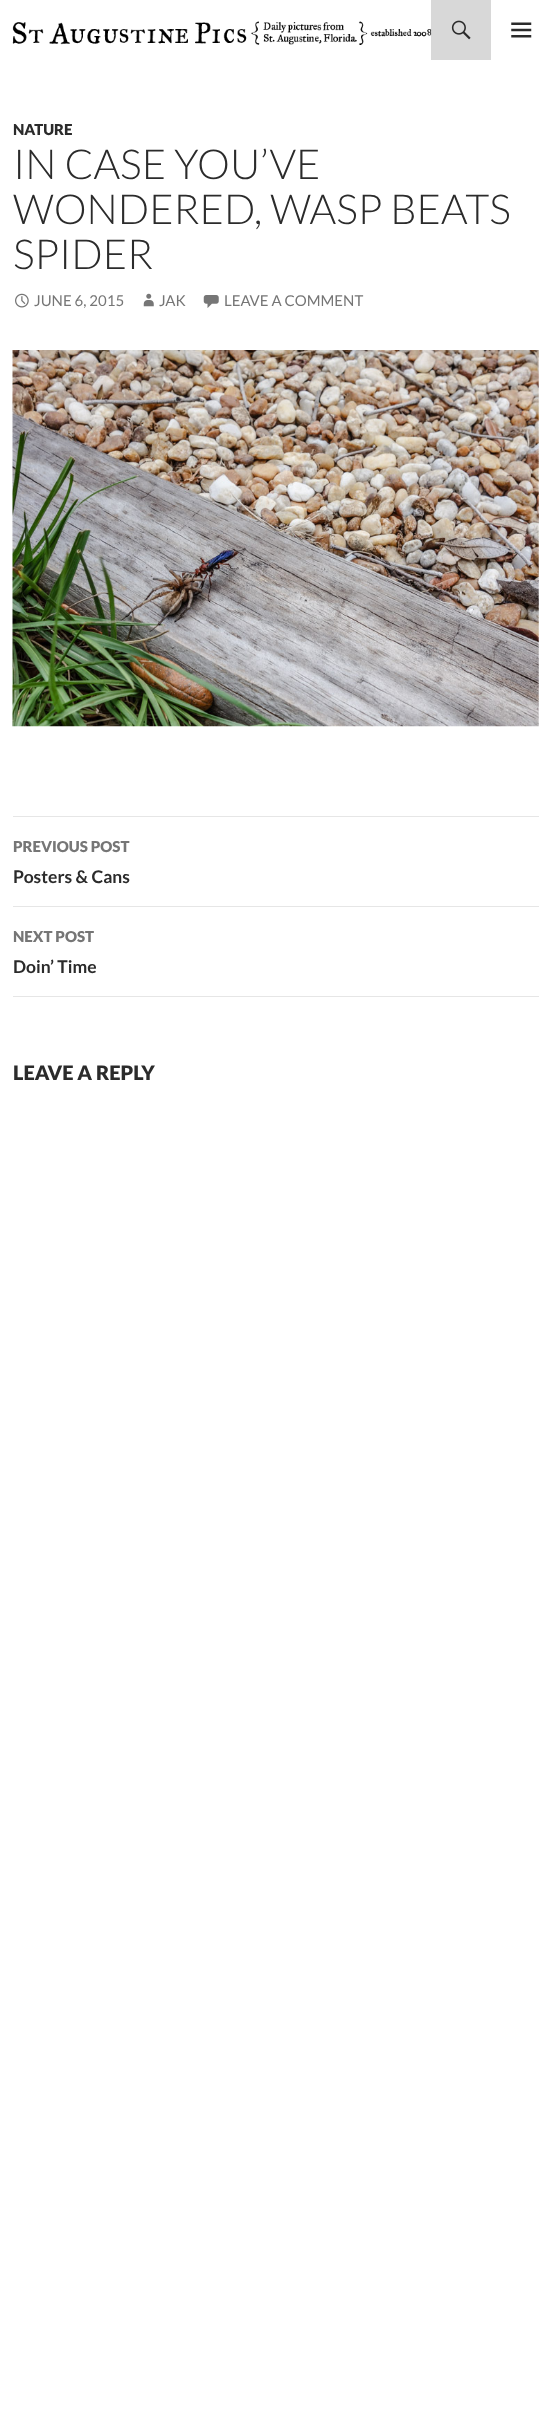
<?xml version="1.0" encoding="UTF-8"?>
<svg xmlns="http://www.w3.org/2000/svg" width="551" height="2419">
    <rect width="100%" height="100%" fill="#FFFFFF"/>
    <rect x="431" y="0" width="60" height="60" fill="#D8D8D8"/>
    <image x="12" y="21" width="420" height="24" href="img_01.png"/>
    <image x="451" y="20" width="20" height="20" href="img_02.png"/>
    <image x="511" y="22" width="21" height="16" href="img_03.png"/>
    <text x="13" y="135" font-family="Lato" font-size="15" font-weight="900" fill="#2B2B2B">NATURE</text>
    <text font-family="Lato" font-size="41.25" font-weight="300" fill="#2B2B2B">
        <tspan x="13" y="179">IN CASE YOU’VE</tspan>
        <tspan x="13" y="224">WONDERED, WASP BEATS</tspan>
        <tspan x="13" y="269">SPIDER</tspan>
    </text>
    <image x="15" y="293" width="14" height="15" href="img_04.png"/>
    <text x="34" y="306" font-family="Lato" font-size="15" fill="#767676">JUNE 6, 2015</text>
    <image x="143" y="293" width="11" height="14" href="img_05.png"/>
    <text x="159" y="306" font-family="Lato" font-size="15" fill="#767676">JAK</text>
    <image x="203" y="295" width="16" height="13" href="img_06.png"/>
    <text x="224" y="306" font-family="Lato" font-size="15" fill="#767676">LEAVE A COMMENT</text>
    <image x="12" y="350" width="527" height="377" href="img_07.png"/>
    <rect x="13" y="816" width="526" height="1" fill="#E6E6E6"/>
    <rect x="13" y="906" width="526" height="1" fill="#E6E6E6"/>
    <text x="13" y="852" font-family="Lato" font-size="15" font-weight="900" fill="#767676">PREVIOUS POST</text>
    <text x="13" y="883" font-family="Lato" font-size="17.5" font-weight="700" fill="#2B2B2B">Posters &amp; Cans</text>
    <rect x="13" y="996" width="526" height="1" fill="#E6E6E6"/>
    <text x="13" y="942" font-family="Lato" font-size="15" font-weight="900" fill="#767676">NEXT POST</text>
    <text x="13" y="973" font-family="Lato" font-size="17.5" font-weight="700" fill="#2B2B2B">Doin’ Time</text>
    <text x="13" y="1080" font-family="Lato" font-size="20" font-weight="900" fill="#2B2B2B">LEAVE A REPLY</text>
</svg>
